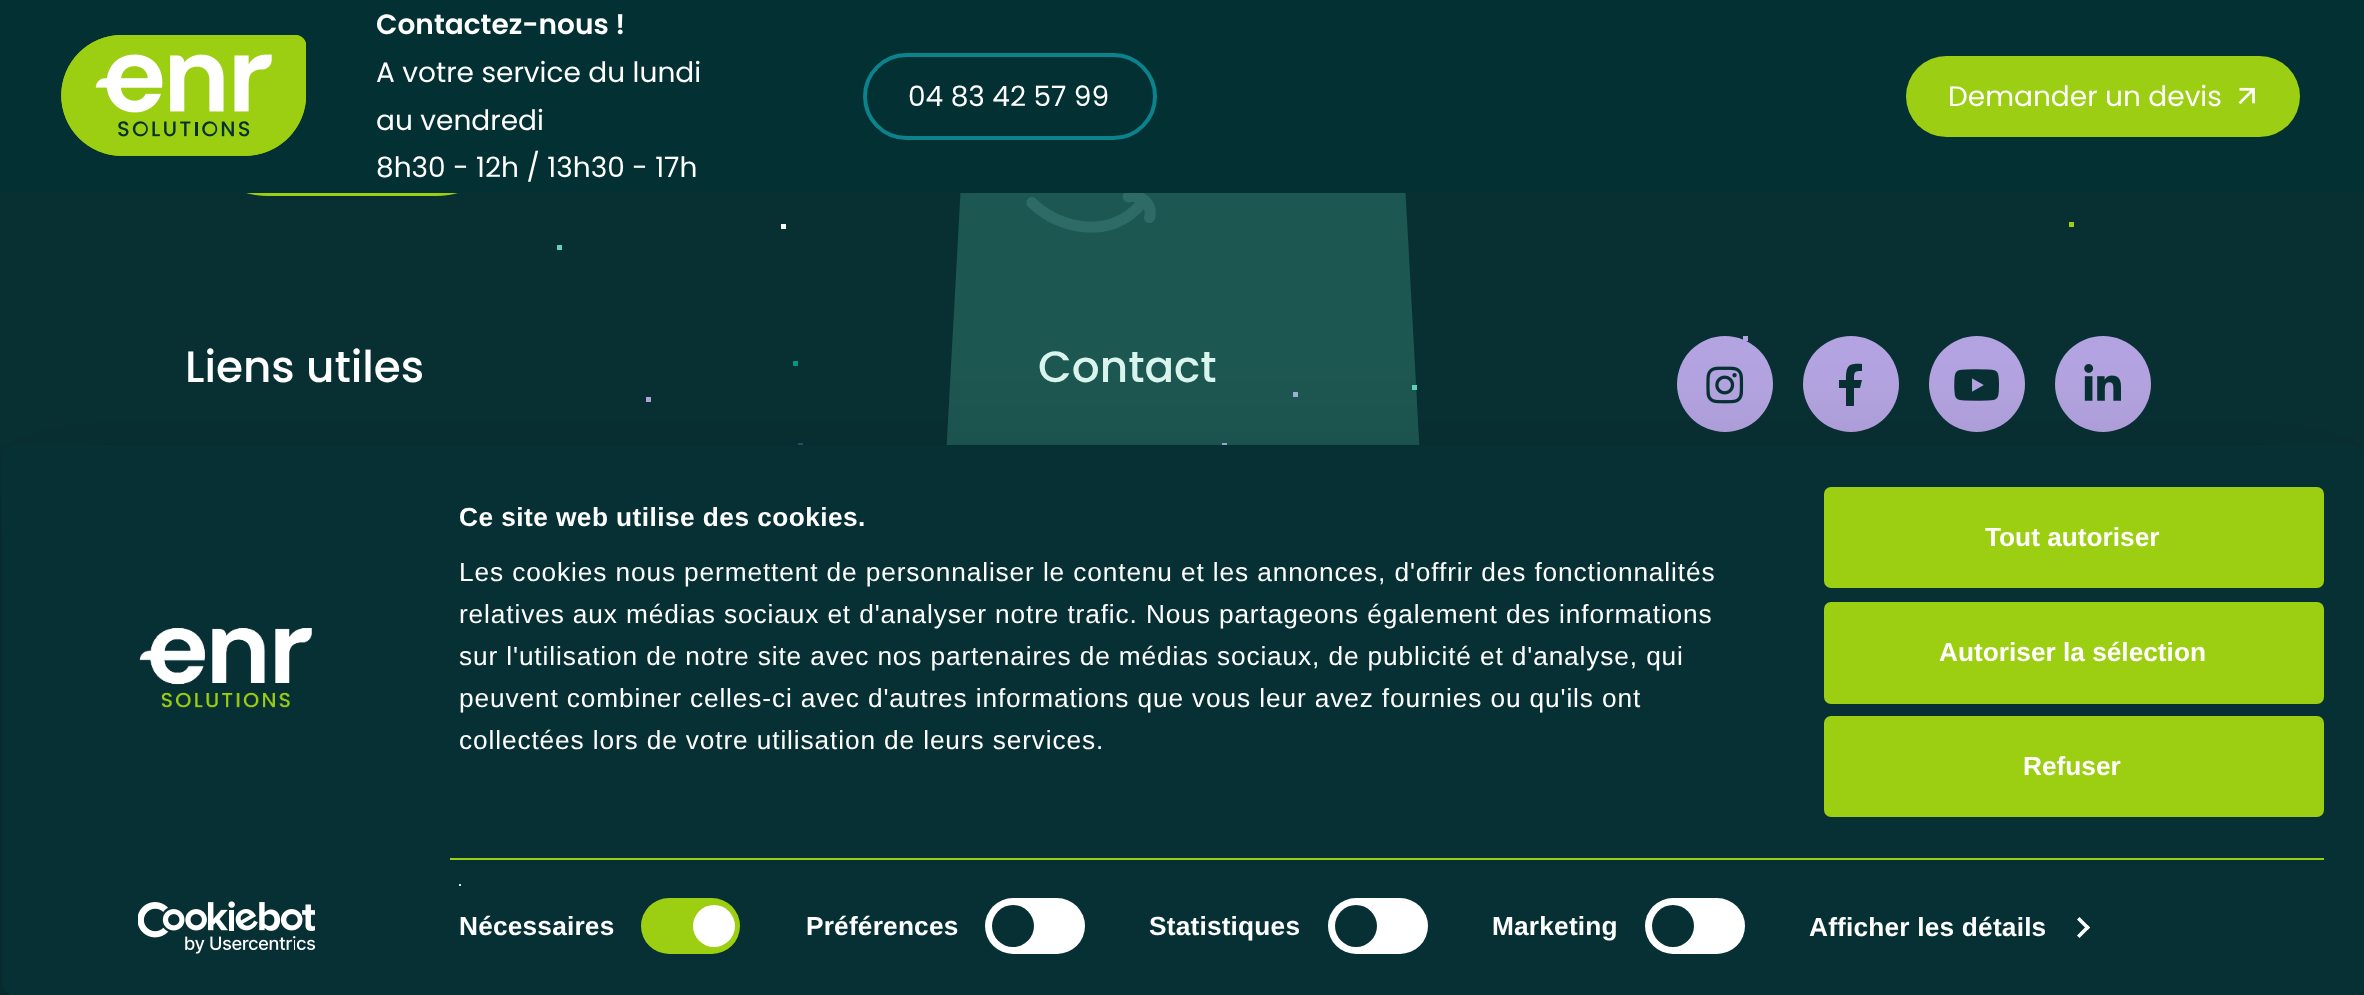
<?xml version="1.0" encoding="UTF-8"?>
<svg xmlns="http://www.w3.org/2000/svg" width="2364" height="995">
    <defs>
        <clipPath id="clip1"><path d="M 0 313 H 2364 V 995 H 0 Z M 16 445 H 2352 C 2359.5 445 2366 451.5 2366 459 V 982 C 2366 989.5 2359.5 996 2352 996 H 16 C 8.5 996 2 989.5 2 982 V 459 C 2 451.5 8.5 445 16 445 Z" clip-rule="evenodd"/></clipPath>
        <filter id="blur1" x="-50%" y="-200%" width="200%" height="500%"><feGaussianBlur stdDeviation="61"/></filter>
        <clipPath id="clip2"><rect x="460" y="497" width="1313" height="310"/></clipPath>
    </defs>
    <rect width="100%" height="100%" fill="#083033"/>
    <rect x="1412" y="385" width="5" height="5" fill="#61D4B5"/>
    <rect x="1222" y="443" width="5" height="2" fill="#B3A3E0"/>
    <rect x="1293" y="392" width="5" height="5" fill="#B3A3E0"/>
    <image x="1026" y="193" width="130" height="40" href="img_05.png"/>
    <text x="1038" y="382" font-family="Poppins" font-size="43.75" font-weight="500" fill="#FFFFFF">Contact</text>
    <path d="M 1445 915 H 921 L 964 128 H 1402 Z" fill="#62D4B6" fill-opacity="0.24"/>
    <rect x="0" y="0" width="2364" height="193" fill="#033033"/>
    <image x="61" y="35" width="245" height="121" href="img_01.png"/>
    <image x="61" y="35" width="245" height="121" href="img_02.png"/>
    <text x="376" y="34" font-family="Poppins" font-size="28" font-weight="600" fill="#FFFFFF">Contactez-nous !</text>
    <text font-family="Poppins" font-size="28" fill="#FFFFFF">
        <tspan x="376" y="82">A votre service du lundi</tspan>
        <tspan x="376" y="130">au vendredi</tspan>
        <tspan x="376" y="177">8h30 - 12h / 13h30 - 17h</tspan>
    </text>
    <rect x="865" y="55" width="290" height="83" rx="41.5" fill="none" stroke="#0A838C" stroke-width="4"/>
    <text x="908" y="106" font-family="Poppins" font-size="28" fill="#FFFFFF">04 83 42 57 99</text>
    <rect x="1906" y="56" width="394" height="81" rx="40.5" fill="#9CCF13"/>
    <text x="1948" y="106" font-family="Poppins" font-size="28" fill="#FFFFFF">Demander un devis</text>
    <image x="2238" y="87" width="17" height="18" href="img_03.png"/>
    <rect x="646" y="397" width="5" height="5" fill="#B3A3E0"/>
    <rect x="793" y="361" width="5" height="5" fill="#009688"/>
    <rect x="781" y="224" width="5" height="5" fill="#FFFFFF"/>
    <rect x="557" y="245" width="5" height="5" fill="#61D4B5"/>
    <circle cx="1725" cy="384" r="48" fill="#B3A3E0"/>
    <rect x="1743" y="336" width="5" height="5" fill="#B3A3E0"/>
    <rect x="798" y="443" width="5" height="2" fill="#1D5965"/>
    <rect x="2069" y="222" width="5" height="5" fill="#9CCF13"/>
    <image x="246" y="193" width="212" height="3" href="img_04.png"/>
    <text x="185" y="382" font-family="Poppins" font-size="43.75" font-weight="500" fill="#FFFFFF">Liens utiles</text>
    <image x="1706" y="366" width="38" height="38" href="img_06.png"/>
    <circle cx="1851" cy="384" r="48" fill="#B3A3E0"/>
    <path d="M 1860 388 H 1854 V 406 H 1846 V 388 H 1839 V 380 H 1846 C 1846 366 1848 363 1862 364 V 371 C 1854 371 1854 372 1854 380 H 1862 Z" fill="#083033"/>
    <circle cx="1977" cy="384" r="48" fill="#B3A3E0"/>
    <image x="1954" y="369" width="45" height="32" href="img_07.png"/>
    <circle cx="2103" cy="384" r="48" fill="#B3A3E0"/>
    <image x="2084" y="364" width="37" height="37" href="img_08.png"/>
    <g clip-path="url(#clip1)">
        <rect x="2" y="497" width="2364" height="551" rx="14" fill="#000000" fill-opacity="0.3" filter="url(#blur1)"/>
    </g>
    <rect x="2" y="445" width="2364" height="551" rx="14" fill="#073034"/>
    <image x="139" y="628" width="173" height="80" href="img_09.png"/>
    <image x="138" y="901" width="177" height="53" href="img_10.png"/>
    <g clip-path="url(#clip2)">
        <text x="459" y="526" font-family="Liberation Sans" font-size="26.25" font-weight="700" letter-spacing="0.45" fill="#FFFFFF">Ce site web utilise des cookies.</text>
    </g>
    <text font-family="Liberation Sans" font-size="26.25" letter-spacing="0.88" fill="#FFFFFF">
        <tspan x="459" y="581">Les cookies nous permettent de personnaliser le contenu et les annonces, d'offrir des fonctionnalités</tspan>
        <tspan x="459" y="623">relatives aux médias sociaux et d'analyser notre trafic. Nous partageons également des informations</tspan>
        <tspan x="459" y="665">sur l'utilisation de notre site avec nos partenaires de médias sociaux, de publicité et d'analyse, qui</tspan>
        <tspan x="459" y="707">peuvent combiner celles-ci avec d'autres informations que vous leur avez fournies ou qu'ils ont</tspan>
    </text>
    <g clip-path="url(#clip2)">
        <text x="459" y="749" font-family="Liberation Sans" font-size="26.25" letter-spacing="0.88" fill="#FFFFFF">collectées lors de votre utilisation de leurs services.</text>
    </g>
    <rect x="450" y="858" width="1874" height="2" fill="#9CCE11"/>
    <rect x="459" y="884" width="2" height="2" fill="#E5E5E5"/>
    <text x="459" y="935" font-family="Liberation Sans" font-size="26.25" font-weight="700" letter-spacing="0.2" fill="#FFFFFF">Nécessaires</text>
    <rect x="641" y="898" width="99" height="56" rx="28" fill="#9CCE11"/>
    <circle cx="714" cy="926" r="21" fill="#FFFFFF"/>
    <text x="806" y="935" font-family="Liberation Sans" font-size="26.25" font-weight="700" letter-spacing="0.2" fill="#FFFFFF">Préférences</text>
    <rect x="985" y="898" width="100" height="56" rx="28" fill="#FFFFFF"/>
    <circle cx="1013" cy="926" r="21" fill="#073034"/>
    <text x="1149" y="935" font-family="Liberation Sans" font-size="26.25" font-weight="700" letter-spacing="0.2" fill="#FFFFFF">Statistiques</text>
    <rect x="1328" y="898" width="100" height="56" rx="28" fill="#FFFFFF"/>
    <circle cx="1356" cy="926" r="21" fill="#073034"/>
    <text x="1492" y="935" font-family="Liberation Sans" font-size="26.25" font-weight="700" letter-spacing="0.2" fill="#FFFFFF">Marketing</text>
    <rect x="1645" y="898" width="100" height="56" rx="28" fill="#FFFFFF"/>
    <circle cx="1673" cy="926" r="21" fill="#073034"/>
    <text x="1809" y="936" font-family="Liberation Sans" font-size="26.25" font-weight="700" letter-spacing="0.2" fill="#FFFFFF">Afficher les détails</text>
    <path d="M 2079.5 917 L 2090 927.5 L 2087.5 930 L 2077 919.5 Z" fill="#FFFFFF"/>
    <path d="M 2087.5 925 L 2090 927.5 L 2079.5 938 L 2077 935.5 Z" fill="#FFFFFF"/>
    <rect x="1826" y="489" width="496" height="97" rx="5" fill="#9CCE11" stroke="#9CCE11" stroke-width="4"/>
    <text x="1985" y="546" font-family="Liberation Sans" font-size="26.25" font-weight="700" fill="#FFFFFF">Tout autoriser</text>
    <rect x="1826" y="604" width="496" height="98" rx="5" fill="#9CCE11" stroke="#9CCE11" stroke-width="4"/>
    <text x="1939" y="661" font-family="Liberation Sans" font-size="26.25" font-weight="700" fill="#FFFFFF">Autoriser la sélection</text>
    <rect x="1826" y="718" width="496" height="97" rx="5" fill="#9CCE11" stroke="#9CCE11" stroke-width="4"/>
    <text x="2023" y="775" font-family="Liberation Sans" font-size="26.25" font-weight="700" fill="#FFFFFF">Refuser</text>
</svg>
